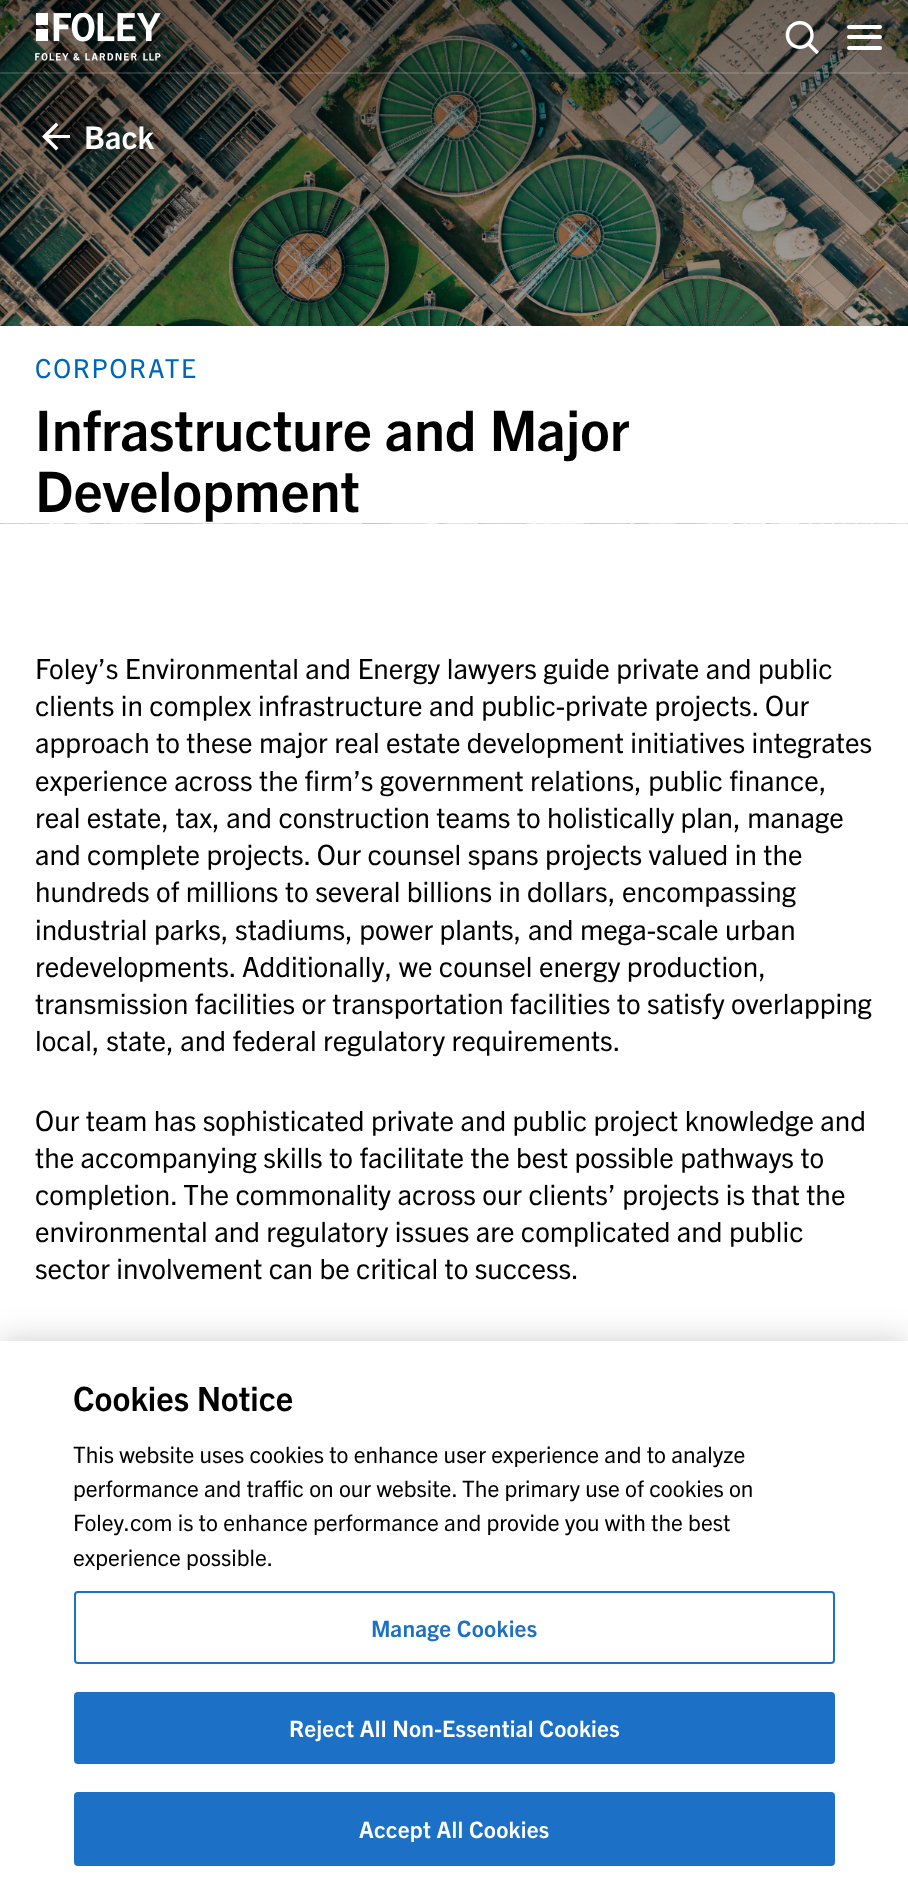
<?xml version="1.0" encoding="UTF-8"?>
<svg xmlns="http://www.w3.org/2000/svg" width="908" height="1893">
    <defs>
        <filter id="blur1" x="-50%" y="-200%" width="200%" height="500%"><feGaussianBlur stdDeviation="16"/></filter>
    </defs>
    <rect width="100%" height="100%" fill="#FFFFFF"/>
    <image x="0" y="0" width="908" height="524" href="img_03.png"/>
    <rect x="0" y="72" width="908" height="2" fill="#FFFFFF" fill-opacity="0.15"/>
    <image x="35" y="13" width="126" height="48" href="img_01.png"/>
    <image x="785" y="21" width="34" height="34" href="img_02.png"/>
    <rect x="847" y="25" width="35" height="4" rx="2" fill="#FFFFFF"/>
    <rect x="847" y="35" width="35" height="4" rx="2" fill="#FFFFFF"/>
    <rect x="847" y="46" width="35" height="4" rx="2" fill="#FFFFFF"/>
    <path d="M 70 135 H 48.5 L 58.5 125 L 56 122.5 L 42 136.5 L 56 150.5 L 58.5 148 L 48.5 138 H 70 Z" fill="#FFFFFF"/>
    <text x="84" y="149" font-family="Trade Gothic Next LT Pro" font-size="31.5" font-weight="700" fill="#FFFFFF">Back</text>
    <rect x="0" y="326" width="908" height="197" fill="#FFFFFF"/>
    <text x="35" y="378" font-family="Trade Gothic Next LT Pro" font-size="26.25" letter-spacing="1.75" fill="#0066BA">CORPORATE</text>
    <text font-family="Trade Gothic Next LT Pro" font-size="56" font-weight="700" fill="#000000">
        <tspan x="35" y="451">Infrastructure and Major</tspan>
        <tspan x="35" y="512">Development</tspan>
    </text>
    <text font-family="Trade Gothic Next LT Pro" font-size="28" fill="#000000">
        <tspan x="35" y="679">Foley’s Environmental and Energy lawyers guide private and public</tspan>
        <tspan x="35" y="716">clients in complex infrastructure and public-private projects. Our</tspan>
        <tspan x="35" y="753">approach to these major real estate development initiatives integrates</tspan>
        <tspan x="35" y="791">experience across the firm’s government relations, public finance,</tspan>
        <tspan x="35" y="828">real estate, tax, and construction teams to holistically plan, manage</tspan>
        <tspan x="35" y="865">and complete projects. Our counsel spans projects valued in the</tspan>
        <tspan x="35" y="902">hundreds of millions to several billions in dollars, encompassing</tspan>
        <tspan x="35" y="940">industrial parks, stadiums, power plants, and mega-scale urban</tspan>
        <tspan x="35" y="977">redevelopments. Additionally, we counsel energy production,</tspan>
        <tspan x="35" y="1014">transmission facilities or transportation facilities to satisfy overlapping</tspan>
        <tspan x="35" y="1051">local, state, and federal regulatory requirements.</tspan>
    </text>
    <text font-family="Trade Gothic Next LT Pro" font-size="28" fill="#000000">
        <tspan x="35" y="1131">Our team has sophisticated private and public project knowledge and</tspan>
        <tspan x="35" y="1168">the accompanying skills to facilitate the best possible pathways to</tspan>
        <tspan x="35" y="1205">completion. The commonality across our clients’ projects is that the</tspan>
        <tspan x="35" y="1242">environmental and regulatory issues are complicated and public</tspan>
        <tspan x="35" y="1279">sector involvement can be critical to success.</tspan>
    </text>
    <rect x="0" y="1341" width="908" height="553" fill="#000000" fill-opacity="0.2" filter="url(#blur1)"/>
    <rect x="0" y="1341" width="908" height="552" fill="#FFFFFF"/>
    <text x="73" y="1411" font-family="Trade Gothic Next LT Pro" font-size="33.5" font-weight="700" fill="#000000">Cookies Notice</text>
    <text font-family="Trade Gothic Next LT Pro" font-size="22.75" fill="#000000">
        <tspan x="73" y="1463">This website uses cookies to enhance user experience and to analyze</tspan>
        <tspan x="73" y="1497">performance and traffic on our website. The primary use of cookies on</tspan>
        <tspan x="73" y="1531">Foley.com is to enhance performance and provide you with the best</tspan>
        <tspan x="73" y="1566">experience possible.</tspan>
    </text>
    <rect x="75" y="1592" width="759" height="71" rx="3" fill="none" stroke="#1C70C6" stroke-width="2"/>
    <text x="371" y="1637" font-family="Trade Gothic Next LT Pro" font-size="22.75" font-weight="700" letter-spacing="0.25" fill="#1C70C6">Manage Cookies</text>
    <rect x="75" y="1693" width="759" height="70" rx="3" fill="#1C70C6" stroke="#1C70C6" stroke-width="2"/>
    <text x="289" y="1737" font-family="Trade Gothic Next LT Pro" font-size="22.75" font-weight="700" letter-spacing="0.25" fill="#FFFFFF">Reject All Non-Essential Cookies</text>
    <rect x="75" y="1793" width="759" height="72" rx="3" fill="#1C70C6" stroke="#1C70C6" stroke-width="2"/>
    <text x="359" y="1838" font-family="Trade Gothic Next LT Pro" font-size="22.75" font-weight="700" letter-spacing="0.25" fill="#FFFFFF">Accept All Cookies</text>
</svg>
